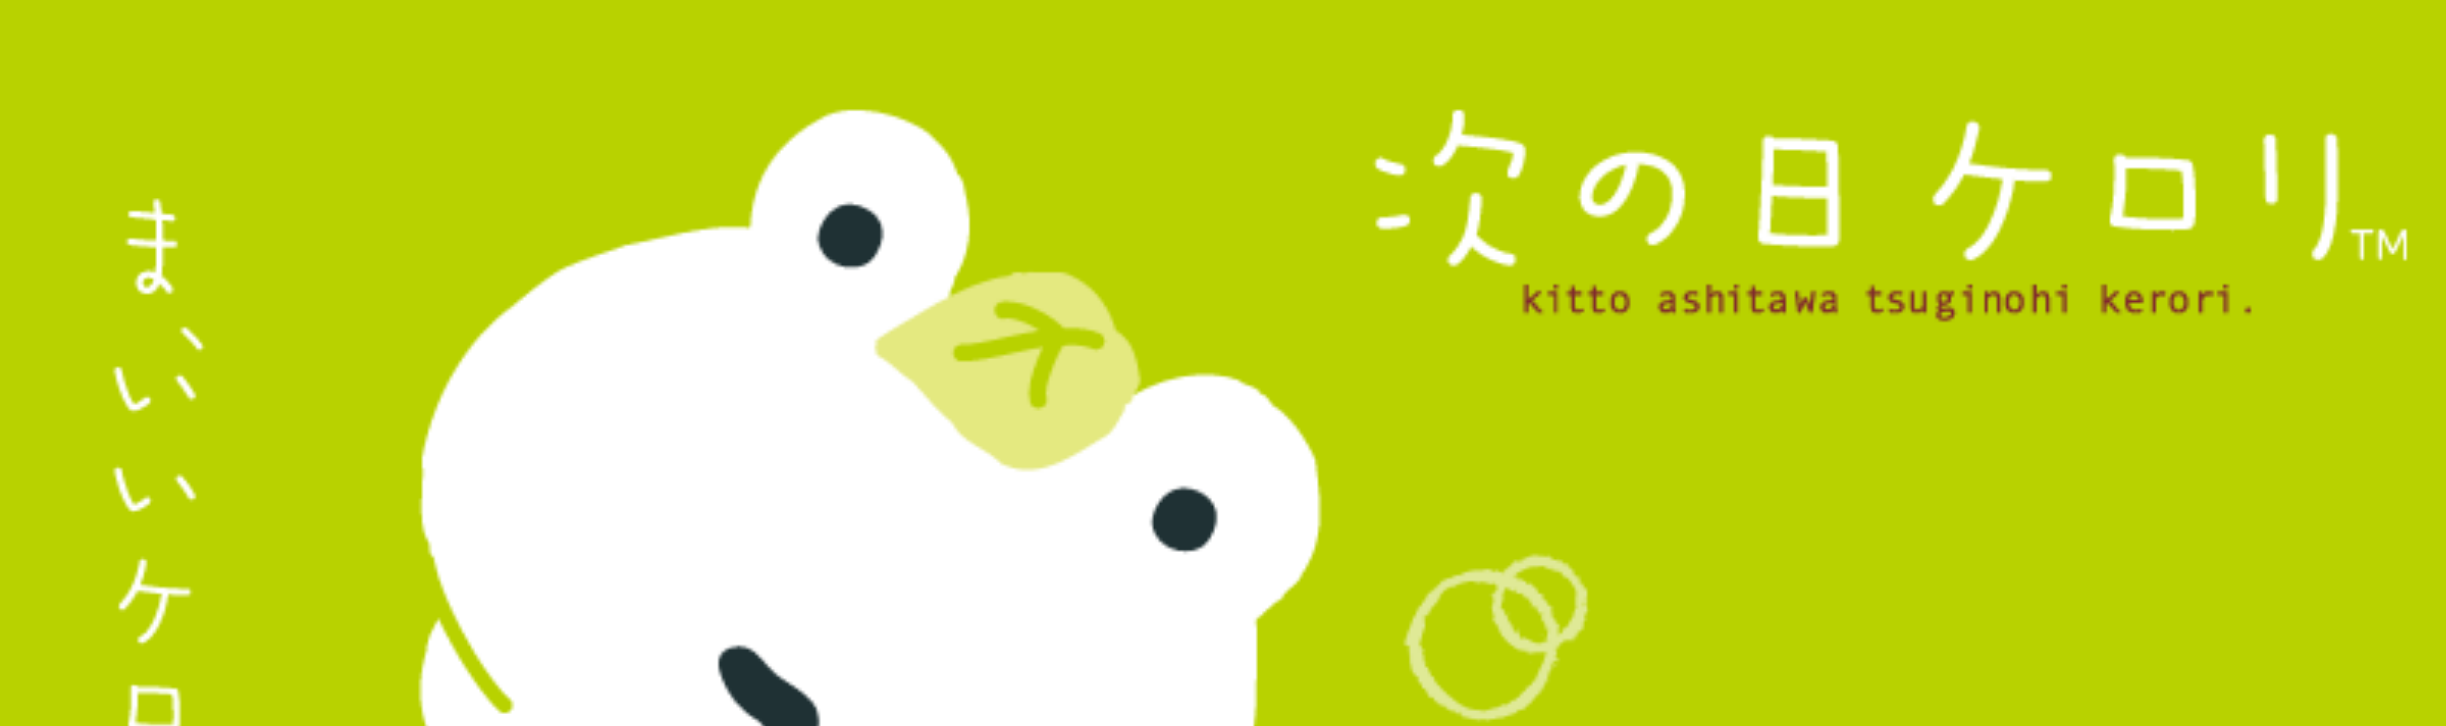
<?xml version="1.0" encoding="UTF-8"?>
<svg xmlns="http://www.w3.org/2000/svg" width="2446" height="726">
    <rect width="100%" height="100%" fill="#FFFFFF"/>
    <image x="0" y="0" width="2446" height="726" href="img_01.png"/>
</svg>
